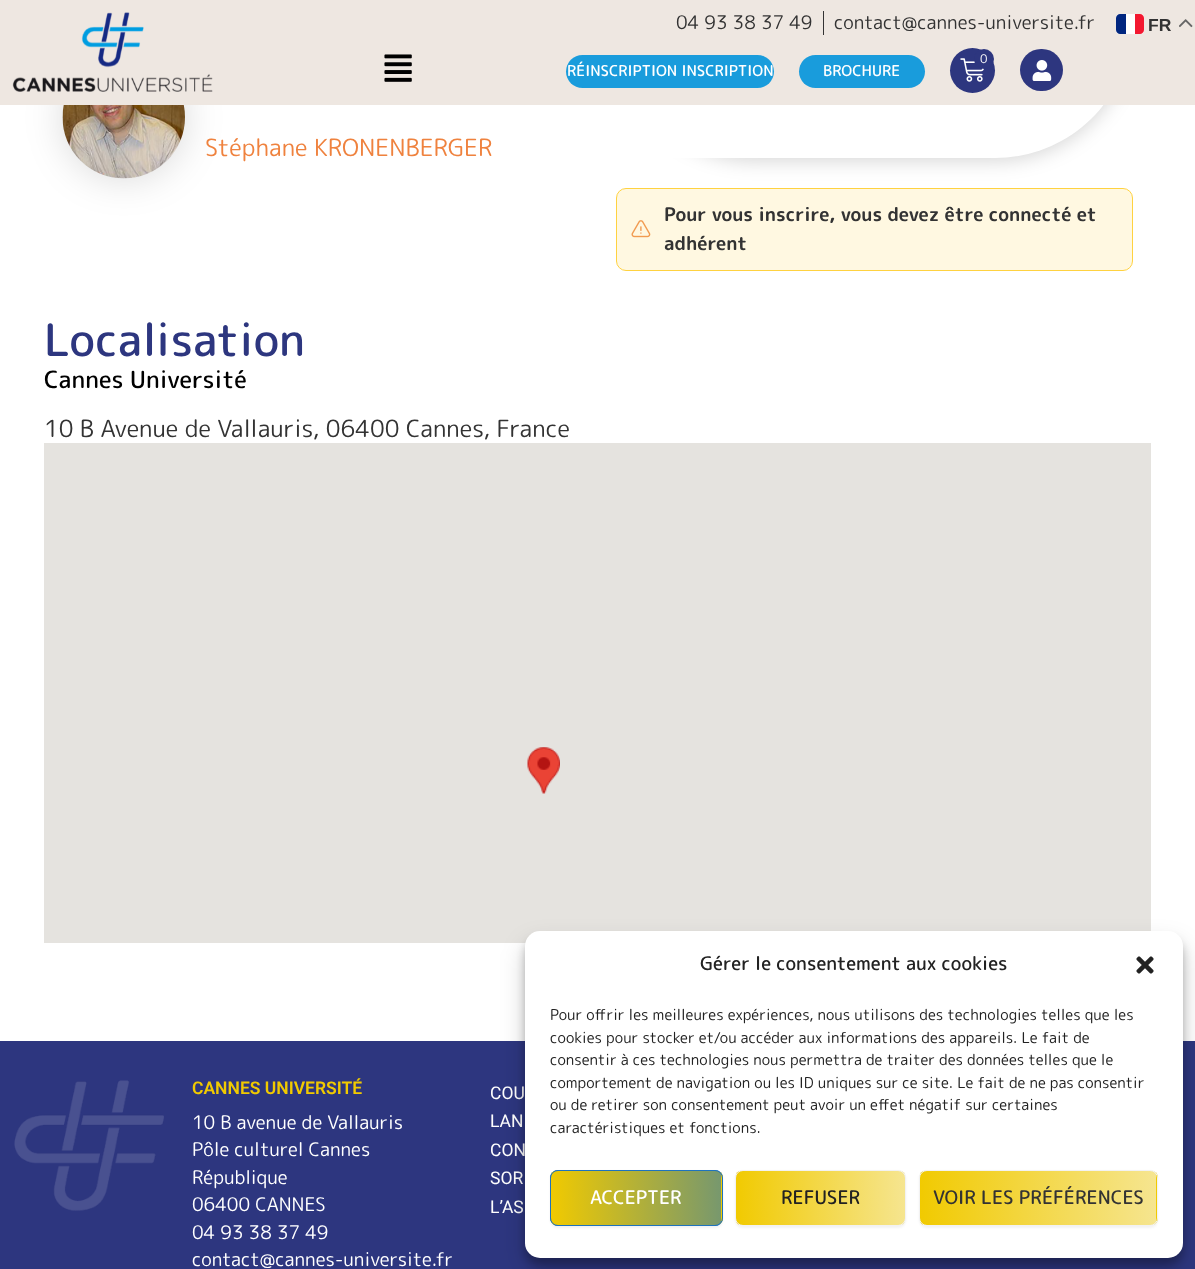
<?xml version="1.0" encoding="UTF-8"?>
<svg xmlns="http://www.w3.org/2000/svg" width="1195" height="1269">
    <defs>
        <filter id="blur1" x="-50%" y="-200%" width="200%" height="500%"><feGaussianBlur stdDeviation="19"/></filter>
        <filter id="blur2" x="-50%" y="-200%" width="200%" height="500%"><feGaussianBlur stdDeviation="9.5"/></filter>
        <filter id="blur3" x="-50%" y="-200%" width="200%" height="500%"><feGaussianBlur stdDeviation="4"/></filter>
        <filter id="blur4" x="-50%" y="-200%" width="200%" height="500%"><feGaussianBlur stdDeviation="12.5"/></filter>
        <filter id="blur5" x="-50%" y="-200%" width="200%" height="500%"><feGaussianBlur stdDeviation="1"/></filter>
        <clipPath id="clip1"><rect x="550" y="1170" width="173" height="56" rx="8"/></clipPath>
        <linearGradient id="g1" gradientUnits="userSpaceOnUse" x1="550" y1="1201" x2="722" y2="1195"><stop offset="0" stop-color="#F1CA00"/><stop offset="1" stop-color="#F1CA00" stop-opacity="0.42"/></linearGradient>
        <linearGradient id="g2" gradientUnits="userSpaceOnUse" x1="720" y1="1201" x2="892" y2="1195"><stop offset="0" stop-color="#F1CA00"/><stop offset="1" stop-color="#F1CA00" stop-opacity="0.42"/></linearGradient>
        <clipPath id="clip2"><rect x="735" y="1170" width="171" height="56" rx="8"/></clipPath>
        <linearGradient id="g3" gradientUnits="userSpaceOnUse" x1="735" y1="1201" x2="906" y2="1195"><stop offset="0" stop-color="#F1CA00"/><stop offset="1" stop-color="#F1CA00" stop-opacity="0.42"/></linearGradient>
        <clipPath id="clip3"><rect x="919" y="1170" width="239" height="56" rx="8"/></clipPath>
        <linearGradient id="g4" gradientUnits="userSpaceOnUse" x1="919" y1="1202" x2="1157" y2="1194"><stop offset="0" stop-color="#F1CA00"/><stop offset="1" stop-color="#F1CA00" stop-opacity="0.42"/></linearGradient>
        <linearGradient id="g5" gradientUnits="userSpaceOnUse" x1="1155" y1="1202" x2="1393" y2="1194"><stop offset="0" stop-color="#F1CA00"/><stop offset="1" stop-color="#F6E590"/></linearGradient>
    </defs>
    <rect width="100%" height="100%" fill="#FFFFFF"/>
    <rect x="63" y="56" width="122" height="123" rx="61" fill="#000000" fill-opacity="0.15" filter="url(#blur1)"/>
    <rect x="616" y="-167" width="517" height="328" rx="138" fill="#000000" fill-opacity="0.16" filter="url(#blur2)"/>
    <path d="M 616 -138 H 1133 V 20 C 1133 96 1071 158 995 158 H 616 Z" fill="#FFFFFF"/>
    <rect x="0" y="0" width="1195" height="105" fill="#EEE7E1"/>
    <image x="12" y="12" width="201" height="80" href="img_01.png"/>
    <text x="676" y="29" font-family="'Rounded Mplus 1c'" font-size="18.75" fill="#333333">04 93 38 37 49</text>
    <rect x="823" y="11" width="1" height="24" fill="#333333"/>
    <text x="834" y="29" font-family="'Rounded Mplus 1c'" font-size="18.75" fill="#333333">contact@cannes-universite.fr</text>
    <rect x="1116" y="14" width="28" height="20" rx="4" fill="#FFFFFF"/>
    <path d="M 1120 14 H 1126 V 34 H 1120 C 1118 34 1116 32 1116 30 V 18 C 1116 16 1118 14 1120 14 Z" fill="#00267F"/>
    <path d="M 1135 14 H 1140 C 1142 14 1144 16 1144 18 V 30 C 1144 32 1142 34 1140 34 H 1135 Z" fill="#F31830"/>
    <text x="1148" y="31" font-family="Liberation Sans" font-size="17.5" font-weight="700" fill="#333333">FR</text>
    <image x="1179" y="19" width="14" height="9" href="img_02.png"/>
    <image x="384" y="54" width="28" height="28" href="img_03.png"/>
    <circle cx="972.5" cy="70.5" r="22.5" fill="#2D367F"/>
    <image x="960" y="58" width="24" height="24" href="img_04.png"/>
    <circle cx="984" cy="59" r="10" fill="#2D367F"/>
    <text x="980" y="63" font-family="'Rounded Mplus 1c'" font-size="12" fill="#FFFFFF">0</text>
    <rect x="1020" y="49" width="43" height="42" rx="21" fill="#2D367F"/>
    <image x="1032" y="60" width="20" height="21" href="img_05.png"/>
    <rect x="566" y="55" width="208" height="33" rx="16.5" fill="#199CDC"/>
    <text x="567" y="76" font-family="'Rounded Mplus 1c'" font-size="15" font-weight="500" fill="#FFFFFF">RÉINSCRIPTION INSCRIPTION</text>
    <rect x="799" y="55" width="126" height="33" rx="16.5" fill="#199CDC"/>
    <text x="823" y="76" font-family="'Rounded Mplus 1c'" font-size="15" font-weight="500" fill="#FFFFFF">BROCHURE</text>
    <image x="62" y="105" width="123" height="74" href="img_06.png"/>
    <text x="205" y="156" font-family="'Rounded Mplus 1c'" font-size="23.75" fill="#EF823E">Stéphane KRONENBERGER</text>
    <rect x="616.5" y="188.5" width="516" height="82" rx="9.5" fill="#FFF8E1" stroke="#FFD240"/>
    <image x="631" y="220" width="20" height="18" href="img_07.png"/>
    <text font-family="'Rounded Mplus 1c Bold'" font-size="18.75" font-weight="700" fill="#333333">
        <tspan x="664" y="221">Pour vous inscrire, vous devez être connecté et</tspan>
        <tspan x="664" y="250">adhérent</tspan>
    </text>
    <text x="44" y="356" font-family="'Rounded Mplus 1c'" font-size="45" font-weight="500" fill="#2D367F">Localisation</text>
    <text x="44" y="388" font-family="'Rounded Mplus 1c'" font-size="23.75" font-weight="500" fill="#000000">Cannes Université</text>
    <text x="44" y="437" font-family="'Rounded Mplus 1c'" font-size="23.75" fill="#333333">10 B Avenue de Vallauris, 06400 Cannes, France</text>
    <rect x="44" y="443" width="1107" height="500" fill="#E5E3DF"/>
    <image x="527" y="747" width="33" height="47" href="img_08.png"/>
    <rect x="0" y="1041" width="1195" height="228" fill="#2D367F"/>
    <image x="14" y="1080" width="150" height="131" href="img_09.png"/>
    <text x="192" y="1094" font-family="Roboto" font-size="17.5" font-weight="600" fill="#F1CA00">CANNES UNIVERSITÉ</text>
    <text font-family="'Rounded Mplus 1c'" font-size="18.75" fill="#FFFFFF">
        <tspan x="192" y="1129">10 B avenue de Vallauris</tspan>
        <tspan x="192" y="1156">Pôle culturel Cannes</tspan>
        <tspan x="192" y="1184">République</tspan>
        <tspan x="192" y="1211">06400 CANNES</tspan>
        <tspan x="192" y="1239">04 93 38 37 49</tspan>
        <tspan x="192" y="1266">contact@cannes-universite.fr</tspan>
    </text>
    <text font-family="Roboto" font-size="17.5" fill="#FFFFFF">
        <tspan x="490" y="1099">COU</tspan>
        <tspan x="490" y="1127">LAN</tspan>
        <tspan x="490" y="1156">CON</tspan>
        <tspan x="490" y="1184">SOR</tspan>
        <tspan x="490" y="1213">L’AS</tspan>
    </text>
    <rect x="525" y="939" width="658" height="326" rx="15" fill="#000000" fill-opacity="0.23" filter="url(#blur3)"/>
    <rect x="525" y="944" width="658" height="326" rx="15" fill="#000000" fill-opacity="0.19" filter="url(#blur4)"/>
    <rect x="525" y="931" width="658" height="327" rx="15" fill="#FFFFFF"/>
    <text x="700" y="970" font-family="'Rounded Mplus 1c'" font-size="18.75" font-weight="500" fill="#222222">Gérer le consentement aux cookies</text>
    <image x="1136" y="956" width="18" height="18" href="img_10.png"/>
    <text font-family="'Rounded Mplus 1c'" font-size="15" fill="#222222">
        <tspan x="550" y="1020">Pour offrir les meilleures expériences, nous utilisons des technologies telles que les</tspan>
        <tspan x="550" y="1043">cookies pour stocker et/ou accéder aux informations des appareils. Le fait de</tspan>
        <tspan x="550" y="1065">consentir à ces technologies nous permettra de traiter des données telles que le</tspan>
        <tspan x="550" y="1088">comportement de navigation ou les ID uniques sur ce site. Le fait de ne pas consentir</tspan>
        <tspan x="550" y="1110">ou de retirer son consentement peut avoir un effet négatif sur certaines</tspan>
        <tspan x="550" y="1133">caractéristiques et fonctions.</tspan>
    </text>
    <rect x="550" y="1171" width="173" height="57" rx="8" fill="#000000" fill-opacity="0.05" filter="url(#blur5)"/>
    <rect x="550" y="1170" width="173" height="56" rx="8" fill="#1E73BE"/>
    <g clip-path="url(#clip1)">
        <rect x="551" y="1171" width="170" height="54" fill="url(#g1)"/>
        <rect x="721" y="1171" width="2" height="54" fill="url(#g2)"/>
    </g>
    <rect x="550.5" y="1170.5" width="172" height="55" rx="7.5" fill="none" stroke="#1E73BE"/>
    <text x="590" y="1204" font-family="'Rounded Mplus 1c'" font-size="18.75" font-weight="500" fill="#FFFFFF">ACCEPTER</text>
    <rect x="735" y="1171" width="171" height="57" rx="8" fill="#000000" fill-opacity="0.05" filter="url(#blur5)"/>
    <rect x="735" y="1170" width="171" height="56" rx="8" fill="#F9F9F9"/>
    <g clip-path="url(#clip2)">
        <rect x="736" y="1171" width="169" height="54" fill="url(#g3)"/>
    </g>
    <rect x="735.5" y="1170.5" width="170" height="55" rx="7.5" fill="none" stroke="#F2F2F2"/>
    <text x="781" y="1204" font-family="'Rounded Mplus 1c'" font-size="18.75" font-weight="500" fill="#222222">REFUSER</text>
    <rect x="919" y="1171" width="239" height="57" rx="8" fill="#000000" fill-opacity="0.05" filter="url(#blur5)"/>
    <rect x="919" y="1170" width="239" height="56" rx="8" fill="#F9F9F9"/>
    <g clip-path="url(#clip3)">
        <rect x="920" y="1171" width="236" height="54" fill="url(#g4)"/>
        <rect x="1156" y="1171" width="2" height="54" fill="url(#g5)"/>
    </g>
    <rect x="919.5" y="1170.5" width="238" height="55" rx="7.5" fill="none" stroke="#F2F2F2"/>
    <text x="933" y="1204" font-family="'Rounded Mplus 1c'" font-size="18.75" font-weight="500" fill="#333333">VOIR LES PRÉFÉRENCES</text>
</svg>
